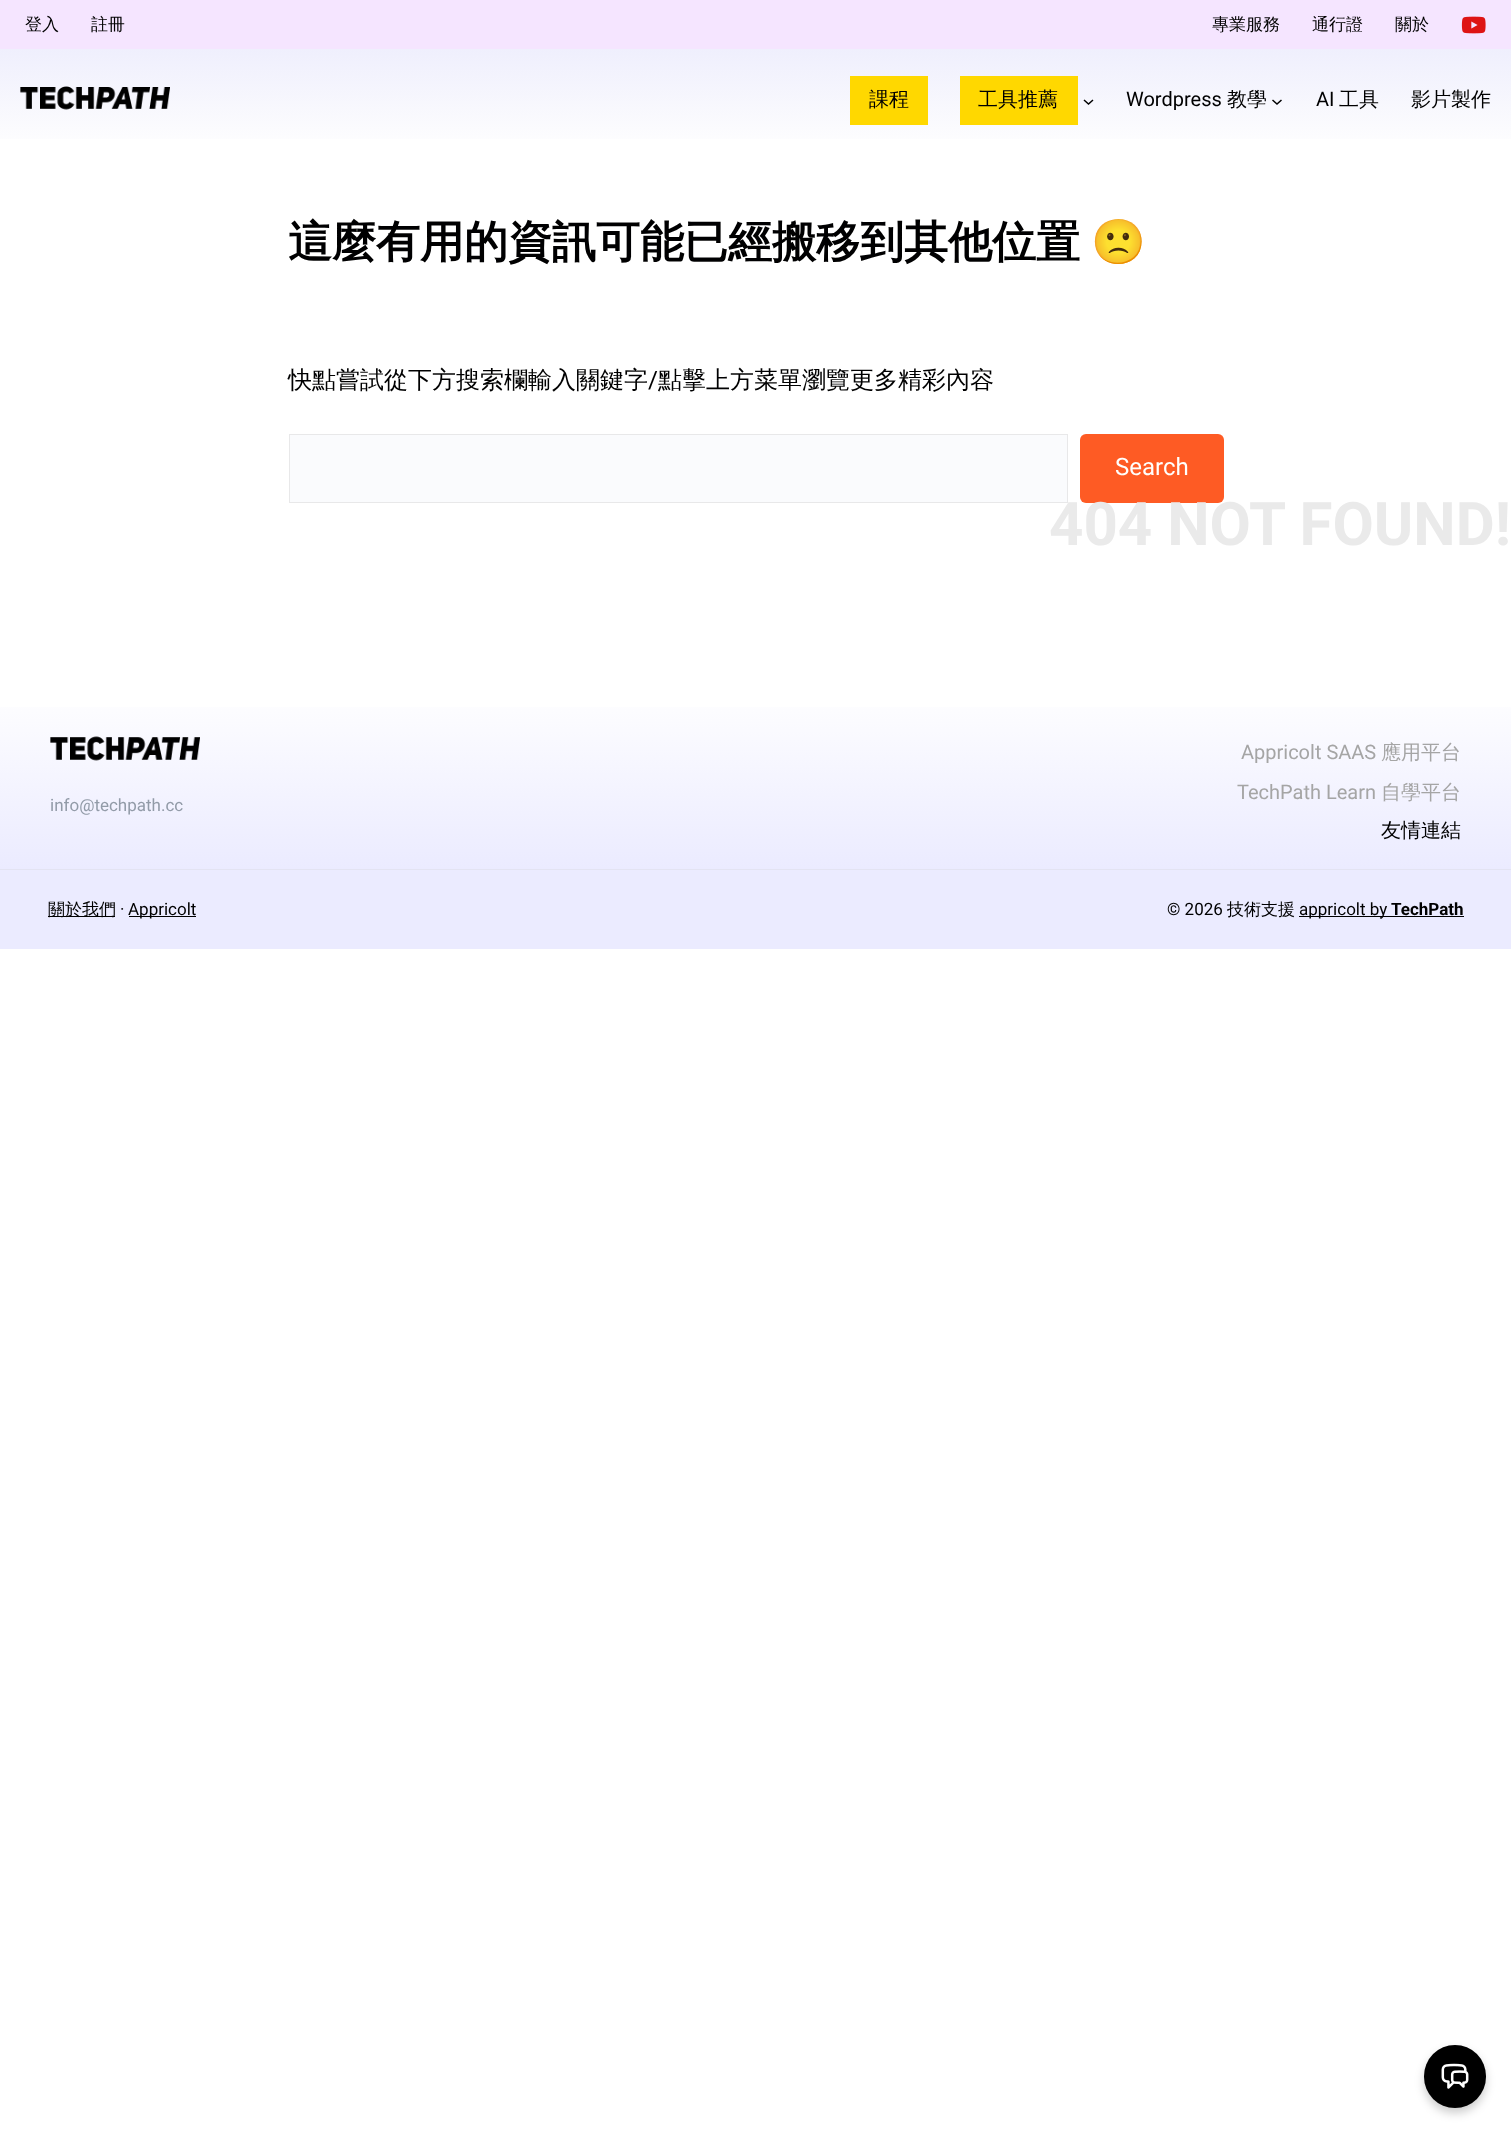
<?xml version="1.0" encoding="UTF-8"?>
<svg xmlns="http://www.w3.org/2000/svg" width="1511" height="2132">
    <defs>
        <linearGradient id="g1" gradientUnits="userSpaceOnUse" x1="756" y1="49" x2="756" y2="151"><stop offset="0" stop-color="#EFEFFD"/><stop offset="0.98" stop-color="#FEFEFE"/></linearGradient>
        <linearGradient id="g2" gradientUnits="userSpaceOnUse" x1="756" y1="651" x2="756" y2="869"><stop offset="0.15" stop-color="#FFFFFF"/><stop offset="1" stop-color="#EBEBFF"/></linearGradient>
        <filter id="blur1" x="-50%" y="-200%" width="200%" height="500%"><feGaussianBlur stdDeviation="5"/></filter>
    </defs>
    <rect width="100%" height="100%" fill="#FFFFFF"/>
    <rect x="0" y="0" width="1511" height="49" fill="#F5E5FF"/>
    <text x="25" y="30" font-family="WenQuanYi Zen Hei" font-size="17" font-weight="500" fill="#000001">登入</text>
    <text x="91" y="30" font-family="WenQuanYi Zen Hei" font-size="17" font-weight="500" fill="#000001">註冊</text>
    <text x="1212" y="30" font-family="WenQuanYi Zen Hei" font-size="17" font-weight="500" fill="#000001">專業服務</text>
    <text x="1312" y="30" font-family="WenQuanYi Zen Hei" font-size="17" font-weight="500" fill="#000001">通行證</text>
    <text x="1395" y="30" font-family="WenQuanYi Zen Hei" font-size="17" font-weight="500" fill="#000001">關於</text>
    <image x="1461" y="16" width="25" height="18" href="img_01.png"/>
    <rect x="0" y="49" width="1511" height="90" fill="url(#g1)"/>
    <image x="20" y="86" width="150" height="24" href="img_02.png"/>
    <rect x="850" y="76" width="78" height="49" fill="#FFD800"/>
    <text x="869" y="106" font-family="WenQuanYi Zen Hei" font-size="20" font-weight="500" fill="#000001">課程</text>
    <rect x="960" y="76" width="118" height="49" fill="#FFD800"/>
    <text x="978" y="106" font-family="WenQuanYi Zen Hei" font-size="20" font-weight="500" fill="#000001">工具推薦</text>
    <path d="M 1084 100 L 1088.5 104 L 1093 100" fill="none" stroke="#000001" stroke-width="1.5"/>
    <text x="1126" y="106" font-family="Roboto" font-size="20" fill="#000001">Wordpress</text>
    <text x="1227" y="106" font-family="WenQuanYi Zen Hei" font-size="20" font-weight="500" fill="#000001">教學</text>
    <path d="M 1272.5 100 L 1277 104 L 1281.5 100" fill="none" stroke="#000001" stroke-width="1.5"/>
    <text x="1316" y="106" font-family="Roboto" font-size="20" fill="#000001">AI</text>
    <text x="1339" y="106" font-family="WenQuanYi Zen Hei" font-size="20" font-weight="500" fill="#000001">工具</text>
    <text x="1411" y="106" font-family="WenQuanYi Zen Hei" font-size="20" font-weight="500" fill="#000001">影片製作</text>
    <text x="288" y="257" font-family="WenQuanYi Zen Hei" font-size="44" font-weight="700" fill="#000001">這麼有用的資訊可能已經搬移到其他位置</text>
    <text x="1091" y="257" font-family="Noto Color Emoji" font-size="44" font-weight="700" fill="#000001">🙁</text>
    <text x="288" y="388" font-family="WenQuanYi Zen Hei" font-size="24" font-weight="500" fill="#000001">快點嘗試從下方搜索欄輸入關鍵字</text>
    <text x="648" y="388" font-family="Roboto" font-size="24" fill="#000001">/</text>
    <text x="658" y="388" font-family="WenQuanYi Zen Hei" font-size="24" font-weight="500" fill="#000001">點擊上方菜單瀏覽更多精彩內容</text>
    <rect x="289.5" y="434.5" width="778" height="68" fill="#FAFBFD" stroke="#E8E8E9"/>
    <rect x="1080" y="434" width="144" height="69" rx="6" fill="#FE5B24"/>
    <text x="1115" y="475" font-family="Roboto" font-size="24" fill="#FFFFFD">Search</text>
    <text x="1049" y="545" font-family="Roboto" font-size="60" font-weight="700" fill="#EAEAEA">404 NOT FOUND!</text>
    <rect x="0" y="707" width="1511" height="162" fill="url(#g2)"/>
    <image x="50" y="736" width="150" height="25" href="img_03.png"/>
    <text x="50" y="811" font-family="Roboto" font-size="17" fill="#929BA8">info@techpath.cc</text>
    <text x="1241" y="759" font-family="Roboto" font-size="20" fill="#A5A5A5">Appricolt SAAS</text>
    <text x="1381" y="759" font-family="WenQuanYi Zen Hei" font-size="20" font-weight="500" fill="#A5A5A5">應用平台</text>
    <text x="1237" y="799" font-family="Roboto" font-size="20" fill="#A5A5A5">TechPath Learn</text>
    <text x="1381" y="799" font-family="WenQuanYi Zen Hei" font-size="20" font-weight="500" fill="#A5A5A5">自學平台</text>
    <text x="1381" y="837" font-family="WenQuanYi Zen Hei" font-size="20" font-weight="500" fill="#000001">友情連結</text>
    <rect x="0" y="870" width="1511" height="79" fill="#EBEBFF"/>
    <rect x="0" y="869" width="1511" height="1" fill="#E3E3F2"/>
    <rect x="48" y="916" width="67" height="1" fill="#000001"/>
    <text x="48" y="915" font-family="WenQuanYi Zen Hei" font-size="17" font-weight="500" fill="#000001">關於我們</text>
    <text x="120" y="915" font-family="Roboto" font-size="17" fill="#000001">·</text>
    <rect x="129" y="916" width="67" height="1" fill="#000001"/>
    <text x="128" y="915" font-family="Roboto" font-size="17" fill="#000001">Appricolt</text>
    <text x="1167" y="915" font-family="Roboto" font-size="17" fill="#000001">© 2026</text>
    <text x="1227" y="915" font-family="WenQuanYi Zen Hei" font-size="17" font-weight="500" fill="#000001">技術支援</text>
    <rect x="1299" y="916" width="165" height="1" fill="#000001"/>
    <text x="1299" y="915" font-family="Roboto" font-size="17" fill="#000001">appricolt by</text>
    <text x="1391" y="915" font-family="Roboto" font-size="17" font-weight="700" fill="#000001">TechPath</text>
    <rect x="1424" y="2050" width="62" height="63" rx="31" fill="#000000" fill-opacity="0.2" filter="url(#blur1)"/>
    <rect x="1424" y="2045" width="62" height="63" rx="31" fill="#000000"/>
    <image x="1441" y="2063" width="28" height="26" href="img_04.png"/>
</svg>
